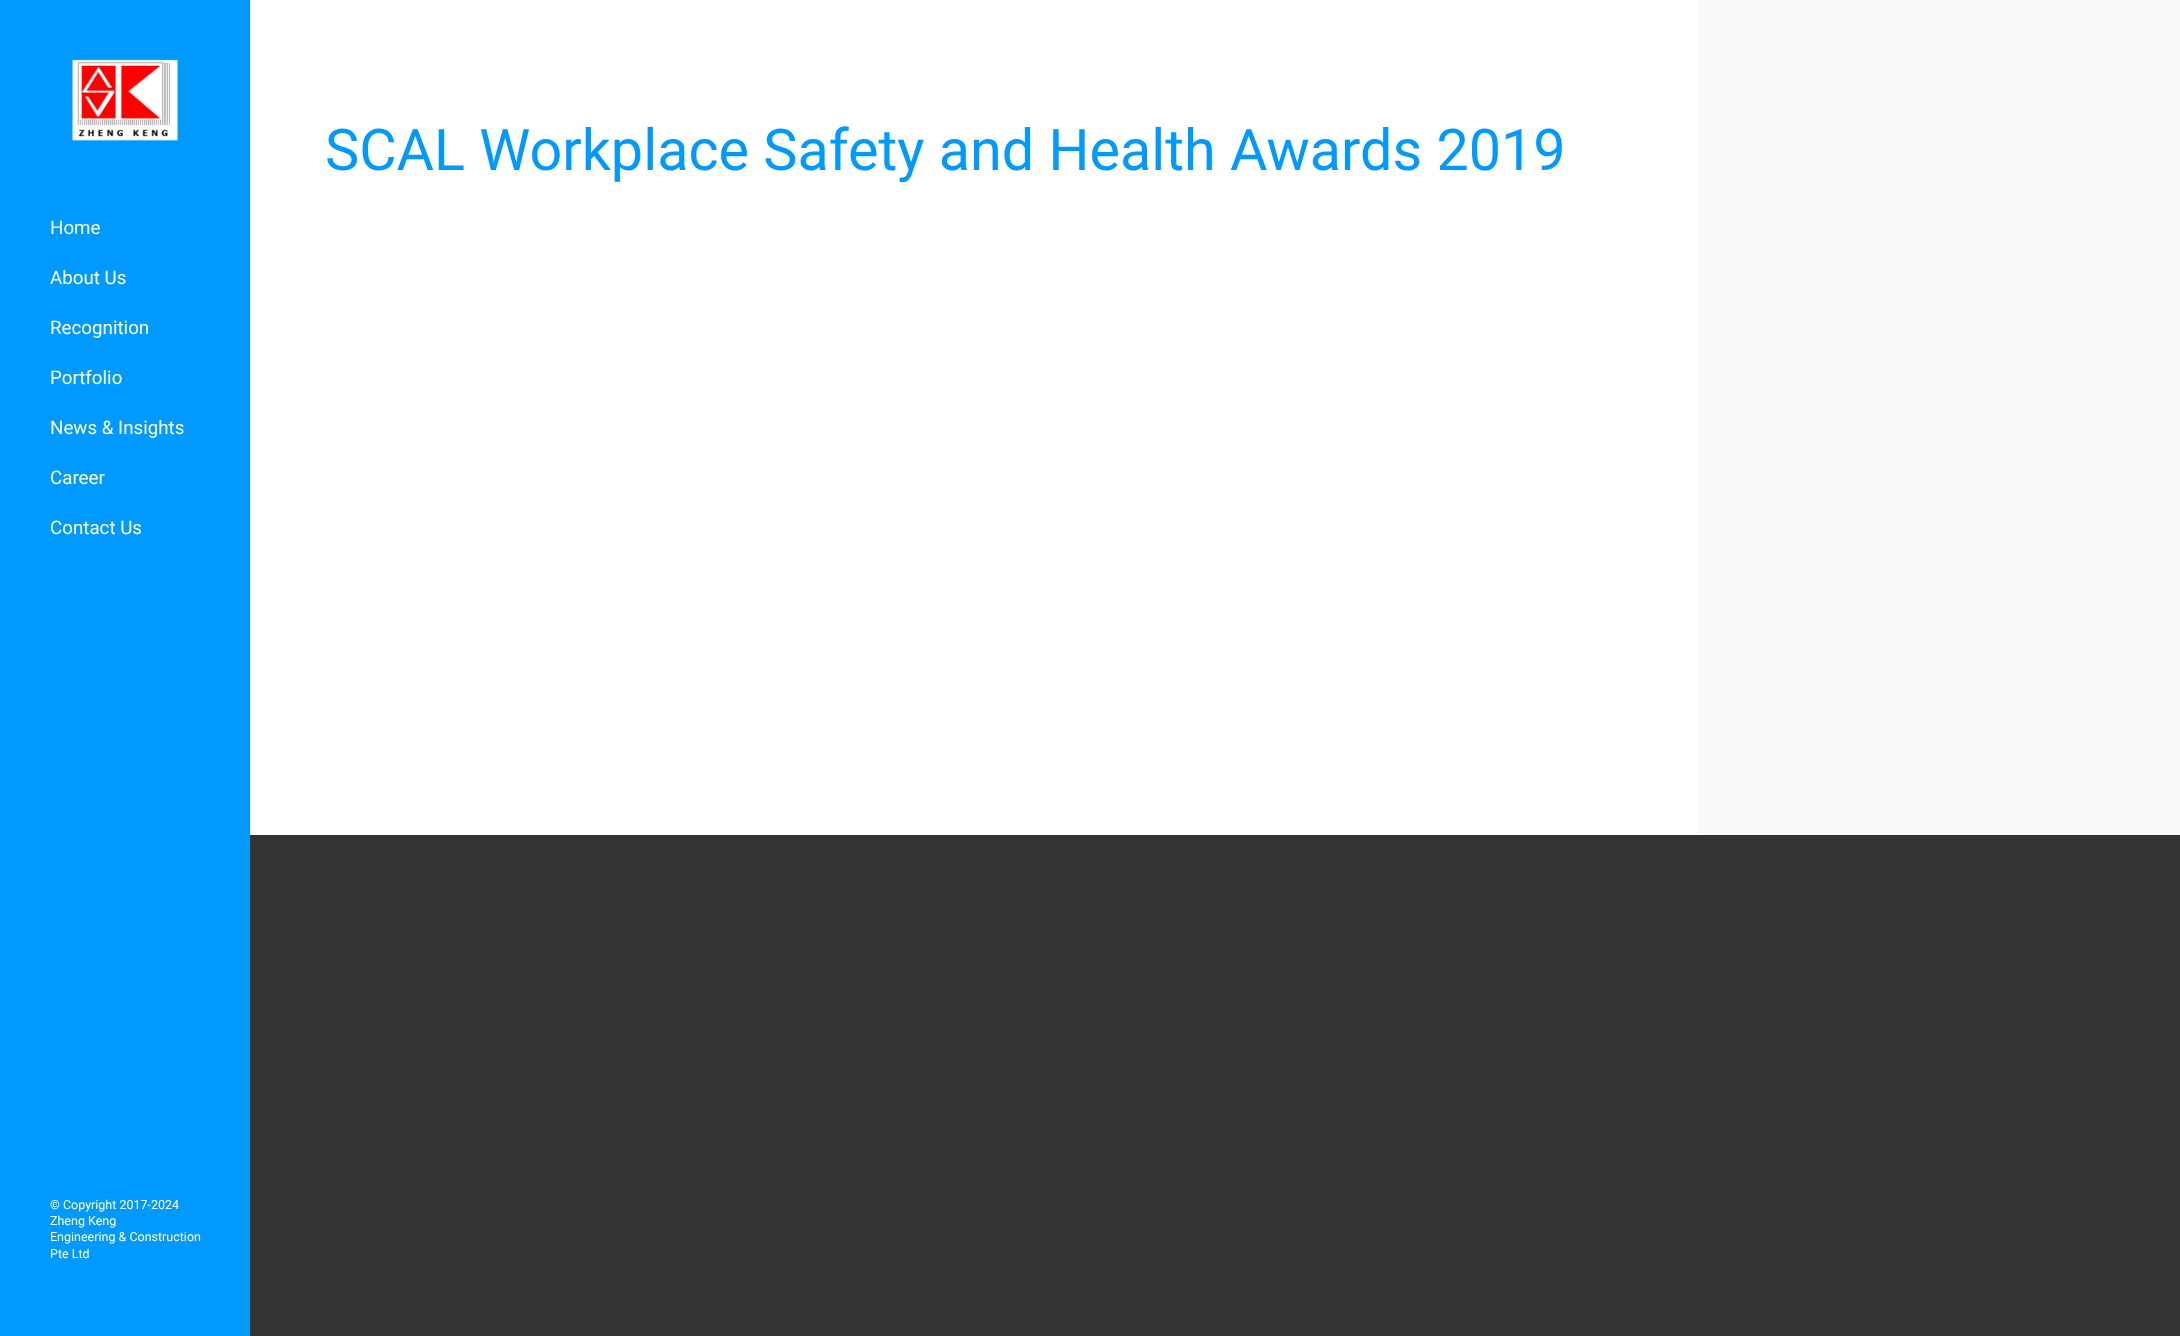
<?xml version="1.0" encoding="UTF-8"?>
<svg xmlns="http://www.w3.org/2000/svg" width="2180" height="1336">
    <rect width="100%" height="100%" fill="#333333"/>
    <rect x="250" y="0" width="1448" height="835" fill="#FFFFFF"/>
    <text x="325" y="170" font-family="Roboto" font-size="57.5" fill="#0099FF">SCAL Workplace Safety and Health Awards 2019</text>
    <rect x="1698" y="0" width="482" height="835" fill="#FAFAFA"/>
    <rect x="0" y="0" width="250" height="1336" fill="#0099FF"/>
    <image x="72" y="59" width="106" height="82" href="img_01.png"/>
    <text x="50" y="234" font-family="Roboto" font-size="18.75" fill="#FFFFFF">Home</text>
    <text x="50" y="284" font-family="Roboto" font-size="18.75" fill="#FFFFFF">About Us</text>
    <text x="50" y="334" font-family="Roboto" font-size="18.75" fill="#FFFFFF">Recognition</text>
    <text x="50" y="384" font-family="Roboto" font-size="18.75" fill="#FFFFFF">Portfolio</text>
    <text x="50" y="434" font-family="Roboto" font-size="18.75" fill="#FFFFFF">News &amp; Insights</text>
    <text x="50" y="484" font-family="Roboto" font-size="18.75" fill="#FFFFFF">Career</text>
    <text x="50" y="534" font-family="Roboto" font-size="18.75" fill="#FFFFFF">Contact Us</text>
    <text font-family="Roboto" font-size="12.5" fill="#FFFFFF">
        <tspan x="50" y="1209">© Copyright 2017-2024</tspan>
        <tspan x="50" y="1225">Zheng Keng</tspan>
        <tspan x="50" y="1241">Engineering &amp; Construction</tspan>
        <tspan x="50" y="1258">Pte Ltd</tspan>
    </text>
</svg>
